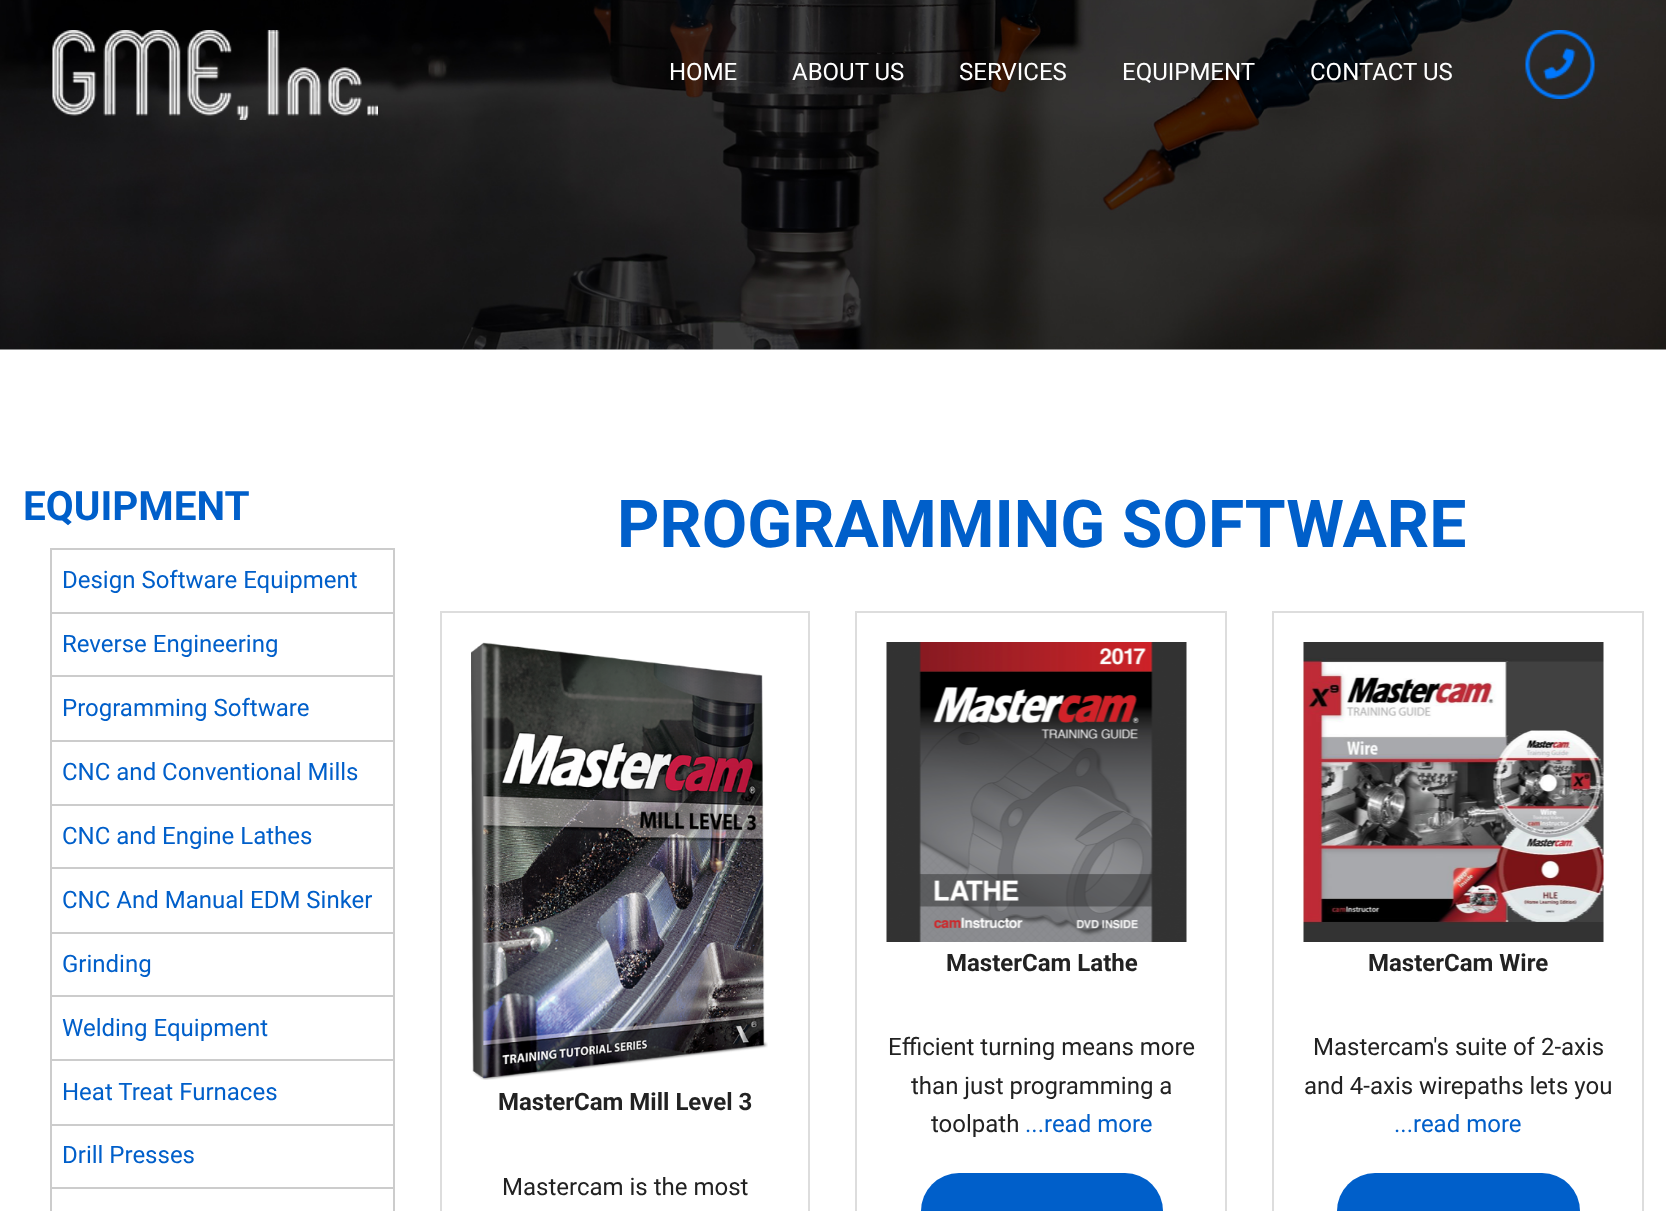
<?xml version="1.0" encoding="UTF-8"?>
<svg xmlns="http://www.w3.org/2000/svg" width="1666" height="1211">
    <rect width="100%" height="100%" fill="#FFFFFF"/>
    <image x="0" y="0" width="1666" height="350" href="img_01.png"/>
    <image x="52" y="30" width="326" height="90" href="img_02.png"/>
    <text x="669" y="80" font-family="Roboto" font-size="24" fill="#FFFFFF">HOME</text>
    <text x="792" y="80" font-family="Roboto" font-size="24" fill="#FFFFFF">ABOUT US</text>
    <text x="959" y="80" font-family="Roboto" font-size="24" fill="#FFFFFF">SERVICES</text>
    <text x="1122" y="80" font-family="Roboto" font-size="24" fill="#FFFFFF">EQUIPMENT</text>
    <text x="1310" y="80" font-family="Roboto" font-size="24" fill="#FFFFFF">CONTACT US</text>
    <image x="1525" y="30" width="70" height="69" href="img_03.png"/>
    <text x="23" y="520" font-family="Roboto" font-size="40.5" font-weight="700" fill="#005FCA">EQUIPMENT</text>
    <rect x="51" y="549" width="343" height="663" fill="none" stroke="#CCCCCC" stroke-width="2"/>
    <rect x="51" y="612" width="342" height="2" fill="#CCCCCC"/>
    <text x="62" y="588" font-family="Roboto" font-size="24" fill="#005FCA">Design Software Equipment</text>
    <rect x="51" y="675" width="342" height="2" fill="#CCCCCC"/>
    <text x="62" y="652" font-family="Roboto" font-size="24" fill="#005FCA">Reverse Engineering</text>
    <rect x="51" y="740" width="342" height="2" fill="#CCCCCC"/>
    <text x="62" y="716" font-family="Roboto" font-size="24" fill="#005FCA">Programming Software</text>
    <rect x="51" y="804" width="342" height="2" fill="#CCCCCC"/>
    <text x="62" y="780" font-family="Roboto" font-size="24" fill="#005FCA">CNC and Conventional Mills</text>
    <rect x="51" y="867" width="342" height="2" fill="#CCCCCC"/>
    <text x="62" y="844" font-family="Roboto" font-size="24" fill="#005FCA">CNC and Engine Lathes</text>
    <rect x="51" y="932" width="342" height="2" fill="#CCCCCC"/>
    <text x="62" y="908" font-family="Roboto" font-size="24" fill="#005FCA">CNC And Manual EDM Sinker</text>
    <rect x="51" y="995" width="342" height="2" fill="#CCCCCC"/>
    <text x="62" y="972" font-family="Roboto" font-size="24" fill="#005FCA">Grinding</text>
    <rect x="51" y="1059" width="342" height="2" fill="#CCCCCC"/>
    <text x="62" y="1036" font-family="Roboto" font-size="24" fill="#005FCA">Welding Equipment</text>
    <rect x="51" y="1124" width="342" height="2" fill="#CCCCCC"/>
    <text x="62" y="1100" font-family="Roboto" font-size="24" fill="#005FCA">Heat Treat Furnaces</text>
    <rect x="51" y="1187" width="342" height="2" fill="#CCCCCC"/>
    <text x="62" y="1163" font-family="Roboto" font-size="24" fill="#005FCA">Drill Presses</text>
    <text x="617" y="547" font-family="Roboto" font-size="66" font-weight="700" fill="#005FCA">PROGRAMMING SOFTWARE</text>
    <rect x="856" y="612" width="370" height="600" fill="none" stroke="#DDDDDD" stroke-width="2"/>
    <image x="886" y="642" width="301" height="300" href="img_04.png"/>
    <text x="946" y="971" font-family="Roboto" font-size="24" font-weight="700" fill="#222222">MasterCam Lathe</text>
    <text x="888" y="1055" font-family="Roboto" font-size="24" fill="#222222">Efficient turning means more</text>
    <text x="911" y="1094" font-family="Roboto" font-size="24" fill="#222222">than just programming a</text>
    <text x="931" y="1132" font-family="Roboto" font-size="24" fill="#222222">toolpath</text>
    <text x="1025" y="1132" font-family="Roboto" font-size="24" fill="#005FCA">...read more</text>
    <rect x="921" y="1173" width="242" height="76" rx="38" fill="#005FCA"/>
    <rect x="1273" y="612" width="370" height="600" fill="none" stroke="#DDDDDD" stroke-width="2"/>
    <image x="1303" y="642" width="301" height="300" href="img_05.png"/>
    <text x="1368" y="971" font-family="Roboto" font-size="24" font-weight="700" fill="#222222">MasterCam Wire</text>
    <text x="1313" y="1055" font-family="Roboto" font-size="24" fill="#222222">Mastercam's suite of 2-axis</text>
    <text x="1304" y="1094" font-family="Roboto" font-size="24" fill="#222222">and 4-axis wirepaths lets you</text>
    <text x="1394" y="1132" font-family="Roboto" font-size="24" fill="#005FCA">...read more</text>
    <rect x="1337" y="1173" width="243" height="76" rx="38" fill="#005FCA"/>
    <rect x="441" y="612" width="368" height="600" fill="none" stroke="#DDDDDD" stroke-width="2"/>
    <image x="471" y="642" width="297" height="438" href="img_06.png"/>
    <text x="498" y="1110" font-family="Roboto" font-size="24" font-weight="700" fill="#222222">MasterCam Mill Level 3</text>
    <text x="502" y="1195" font-family="Roboto" font-size="24" fill="#222222">Mastercam is the most</text>
</svg>
